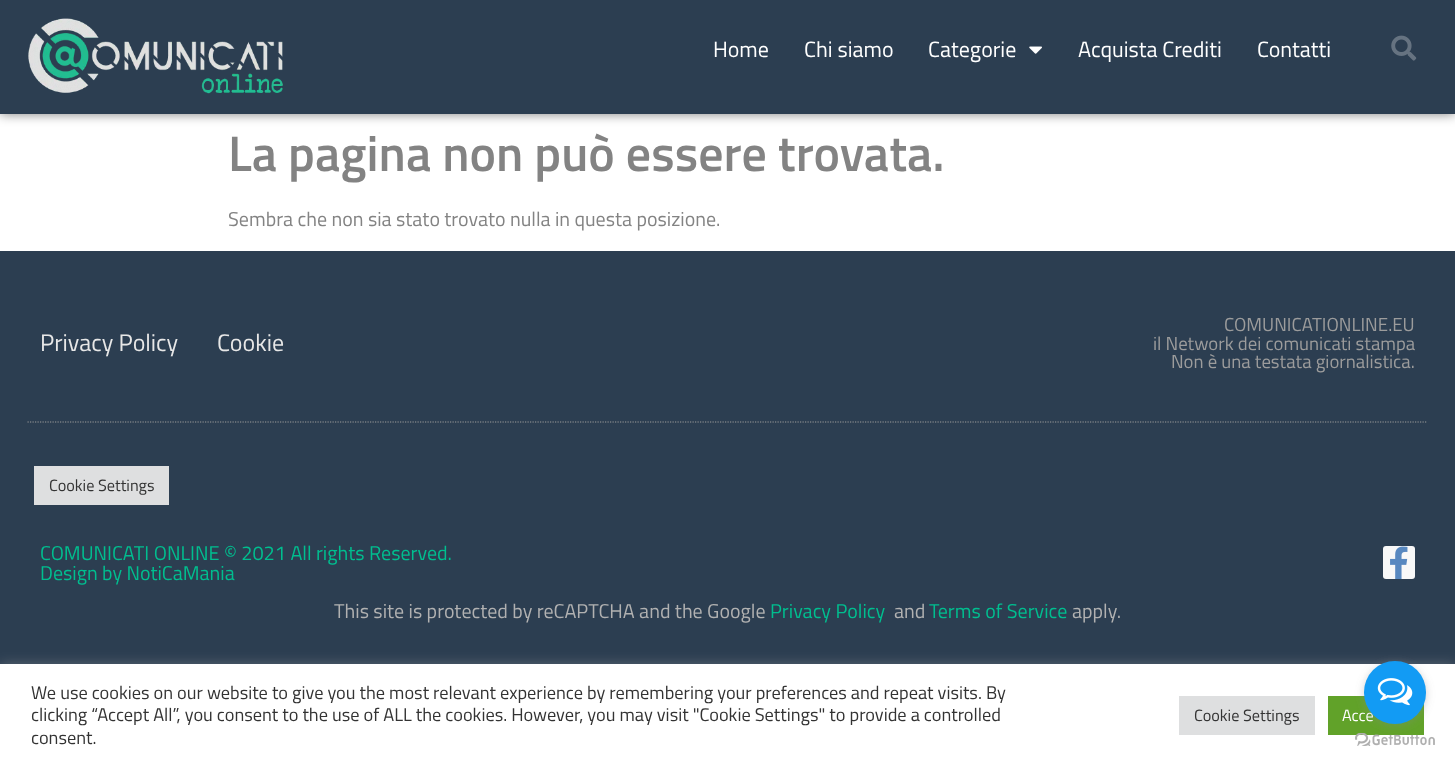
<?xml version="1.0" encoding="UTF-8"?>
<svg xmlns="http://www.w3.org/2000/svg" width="1455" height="766">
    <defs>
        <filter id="blur1" x="-50%" y="-200%" width="200%" height="500%"><feGaussianBlur stdDeviation="6"/></filter>
        <filter id="blur2" x="-50%" y="-200%" width="200%" height="500%"><feGaussianBlur stdDeviation="4.5"/></filter>
    </defs>
    <rect width="100%" height="100%" fill="#FFFFFF"/>
    <rect x="0" y="0" width="1455" height="114" fill="#000000" fill-opacity="0.5" filter="url(#blur1)"/>
    <rect x="0" y="0" width="1455" height="114" fill="#2C3E51"/>
    <image x="28" y="18" width="255" height="76" href="img_01.png"/>
    <text x="713" y="57" font-family="Titillium Web" font-size="22" fill="#FFFFFF">Home</text>
    <text x="804" y="57" font-family="Titillium Web" font-size="22" fill="#FFFFFF">Chi siamo</text>
    <text x="928" y="57" font-family="Titillium Web" font-size="22" fill="#FFFFFF">Categorie</text>
    <image x="1029" y="46" width="13" height="8" href="img_02.png"/>
    <text x="1078" y="57" font-family="Titillium Web" font-size="22" fill="#FFFFFF">Acquista Crediti</text>
    <text x="1257" y="57" font-family="Titillium Web" font-size="22" fill="#FFFFFF">Contatti</text>
    <image x="1391" y="35" width="26" height="26" href="img_03.png"/>
    <text x="228" y="171" font-family="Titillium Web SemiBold" font-size="50" font-weight="600" fill="#838383">La pagina non può essere trovata.</text>
    <text x="228" y="226" font-family="Titillium Web" font-size="20" fill="#838383">Sembra che non sia stato trovato nulla in questa posizione.</text>
    <rect x="0" y="251" width="1455" height="413" fill="#2C3E51"/>
    <path d="M 27.5 422 H 1427.5" fill="none" stroke="#9B9B9B" stroke-width="1.2" stroke-dasharray="1.25 1.25"/>
    <text x="40" y="351" font-family="Titillium Web" font-size="24" fill="#E7E7E7">Privacy Policy</text>
    <text x="217" y="351" font-family="Titillium Web" font-size="24" fill="#E7E7E7">Cookie</text>
    <text x="1224" y="331" font-family="Titillium Web" font-size="18.75" fill="#9C9C9C">COMUNICATIONLINE.EU</text>
    <text x="1153" y="350" font-family="Titillium Web" font-size="18.75" fill="#9C9C9C">il Network dei comunicati stampa</text>
    <text x="1171" y="368" font-family="Titillium Web" font-size="18.75" fill="#9C9C9C">Non è una testata giornalistica.</text>
    <rect x="34" y="466" width="135" height="39" fill="#DEDFE0"/>
    <text x="49" y="491" font-family="Titillium Web" font-size="16.25" fill="#333333">Cookie Settings</text>
    <text font-family="Titillium Web" font-size="20" fill="#00BE8F">
        <tspan x="40" y="560">COMUNICATI ONLINE © 2021 All rights Reserved.</tspan>
        <tspan x="40" y="580">Design by NotiCaMania</tspan>
    </text>
    <rect x="1383" y="546" width="32" height="33" rx="3" fill="#F8F8F8"/>
    <image x="1390" y="546" width="18" height="34" href="img_04.png"/>
    <text x="334" y="618" font-family="Titillium Web" font-size="20" fill="#B1B1B1">This site is protected by reCAPTCHA and the Google</text>
    <text x="770" y="618" font-family="Titillium Web" font-size="20" fill="#00BE8F">Privacy Policy</text>
    <text x="894" y="618" font-family="Titillium Web" font-size="20" fill="#B1B1B1">and</text>
    <text x="929" y="618" font-family="Titillium Web" font-size="20" fill="#00BE8F">Terms of Service</text>
    <text x="1072" y="618" font-family="Titillium Web" font-size="20" fill="#B1B1B1">apply.</text>
    <rect x="0" y="663" width="1455" height="102" fill="#ACABAB" fill-opacity="0.3" filter="url(#blur1)"/>
    <rect x="0" y="664" width="1455" height="102" fill="#FFFFFF"/>
    <text font-family="Titillium Web" font-size="18.33" fill="#333333">
        <tspan x="31" y="699">We use cookies on our website to give you the most relevant experience by remembering your preferences and repeat visits. By</tspan>
        <tspan x="31" y="721">clicking “Accept All”, you consent to the use of ALL the cookies. However, you may visit "Cookie Settings" to provide a controlled</tspan>
        <tspan x="31" y="744">consent.</tspan>
    </text>
    <rect x="1179" y="696" width="136" height="39" fill="#DEDFE0"/>
    <text x="1194" y="721" font-family="Titillium Web" font-size="16.25" fill="#333333">Cookie Settings</text>
    <rect x="1328" y="696" width="96" height="39" fill="#61A229"/>
    <text x="1342" y="721" font-family="Titillium Web" font-size="16.25" fill="#FFFFFF">Acce</text>
    <image x="1355" y="733" width="80" height="13" href="img_06.png"/>
    <rect x="1364" y="663" width="62" height="62" rx="31" fill="#888888" fill-opacity="0.4" filter="url(#blur2)"/>
    <rect x="1364" y="661" width="62" height="63" rx="31" fill="#129BF4"/>
    <image x="1377" y="678" width="36" height="28" href="img_05.png"/>
</svg>
